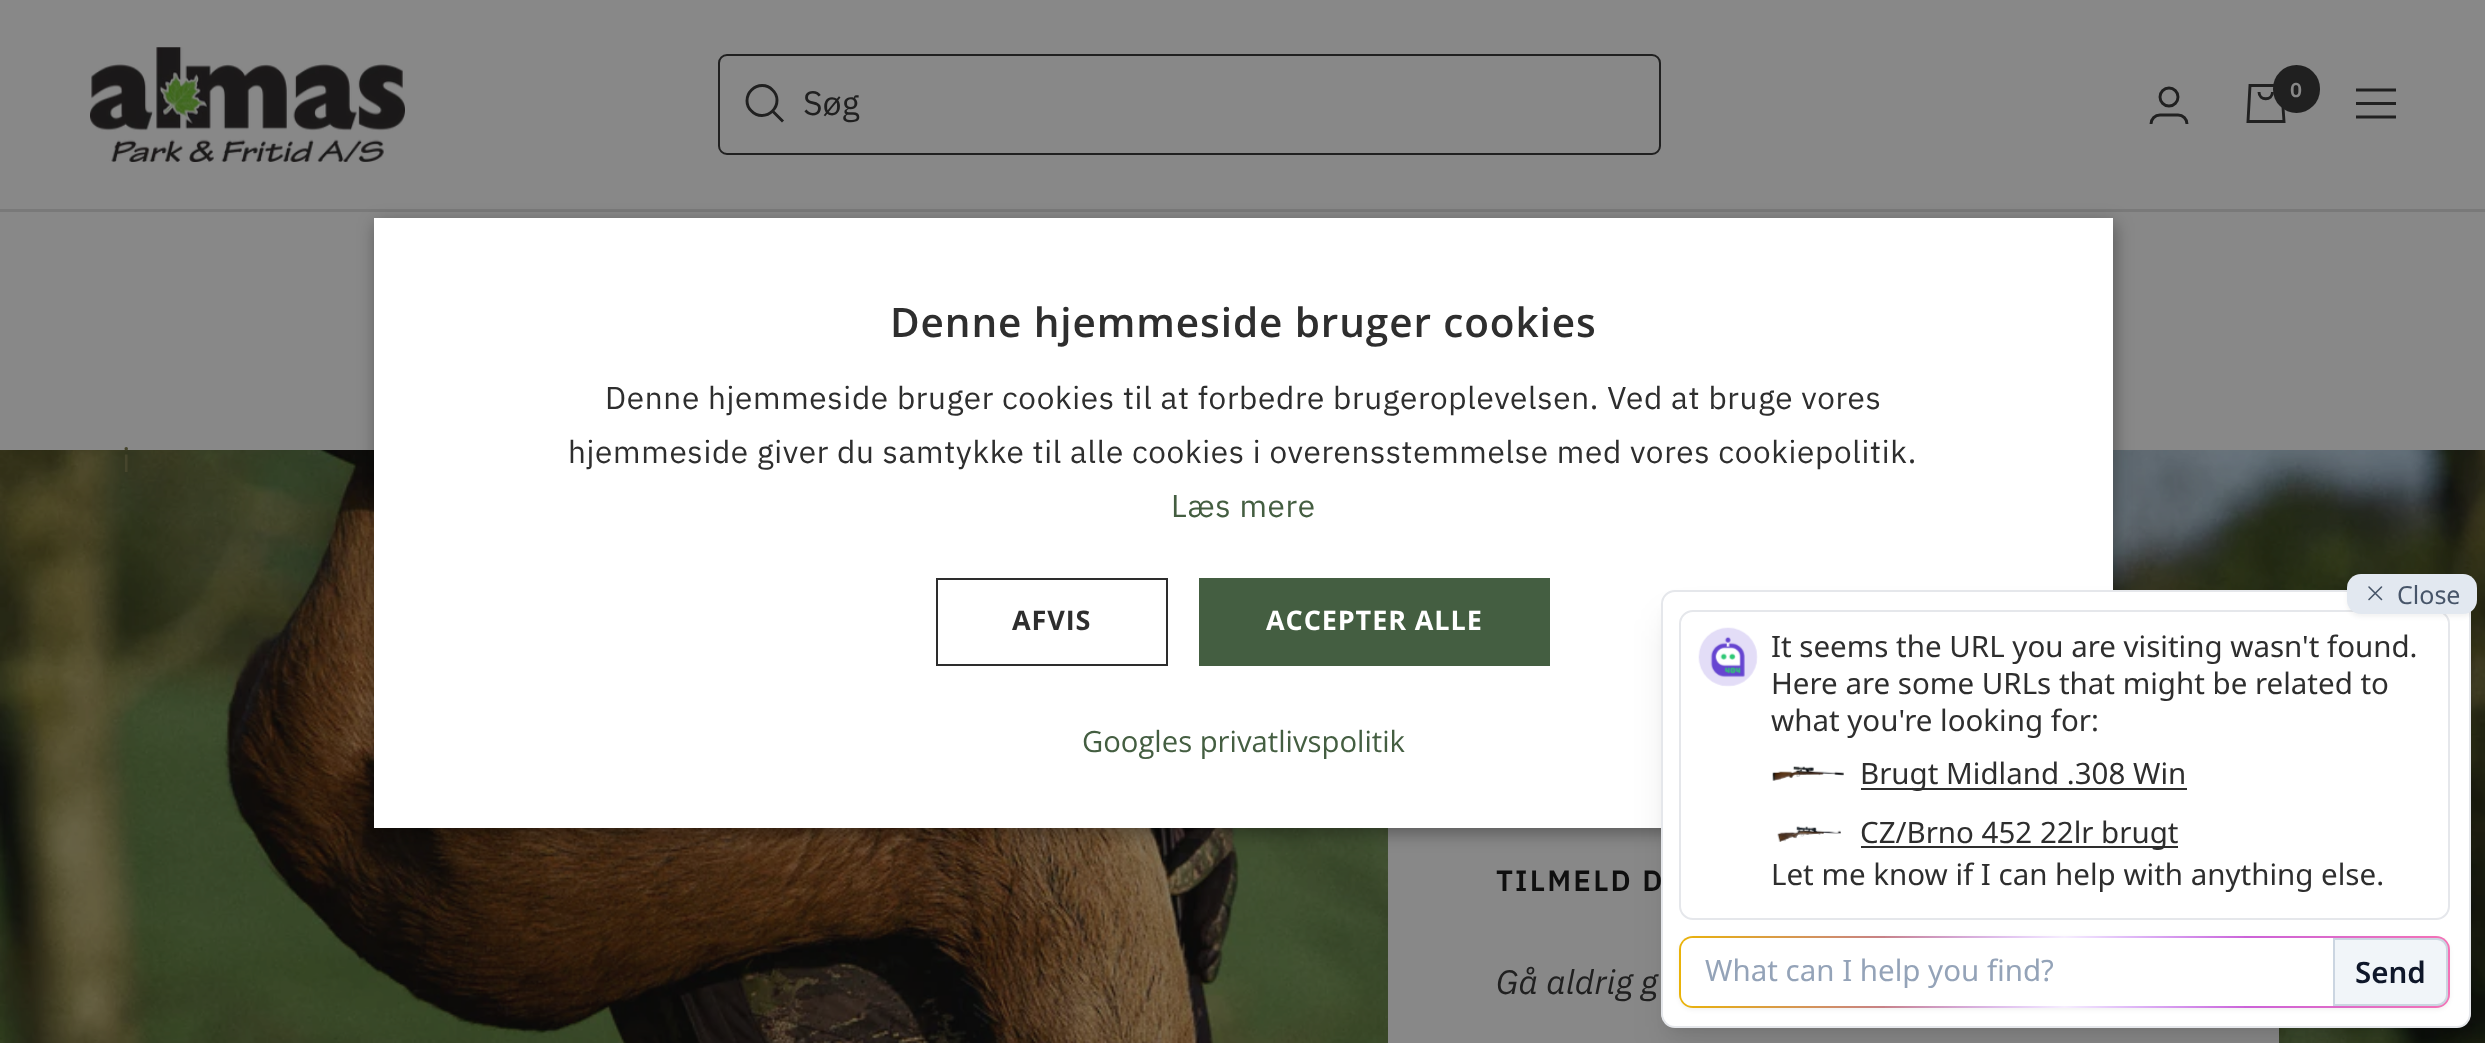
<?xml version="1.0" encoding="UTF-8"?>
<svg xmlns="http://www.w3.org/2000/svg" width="2485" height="1043">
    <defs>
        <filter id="blur1" x="-50%" y="-200%" width="200%" height="500%"><feGaussianBlur stdDeviation="9"/></filter>
        <filter id="blur2" x="-50%" y="-200%" width="200%" height="500%"><feGaussianBlur stdDeviation="7"/></filter>
        <filter id="blur3" x="-50%" y="-200%" width="200%" height="500%"><feGaussianBlur stdDeviation="17"/></filter>
        <filter id="blur4" x="-50%" y="-200%" width="200%" height="500%"><feGaussianBlur stdDeviation="2"/></filter>
        <linearGradient id="g1" gradientUnits="userSpaceOnUse" x1="1679" y1="972" x2="2450" y2="972"><stop offset="0" stop-color="#EAB308"/><stop offset="0.5" stop-color="#A855F7"/><stop offset="1" stop-color="#F472B6"/></linearGradient>
        <linearGradient id="g2" gradientUnits="userSpaceOnUse" x1="1881" y1="972" x2="2248" y2="972"><stop offset="0" stop-color="#FFFFFF" stop-opacity="0"/><stop offset="0.5" stop-color="#FFFFFF" stop-opacity="0.9"/><stop offset="1" stop-color="#FFFFFF" stop-opacity="0"/></linearGradient>
    </defs>
    <rect width="100%" height="100%" fill="#888888"/>
    <rect x="0" y="209" width="2485" height="3" fill="#797979"/>
    <image x="90" y="47" width="315" height="115" href="img_01.png"/>
    <rect x="719" y="55" width="941" height="99" rx="8" fill="none" stroke="#202020" stroke-width="2"/>
    <path d="M 772.5 111 C 778.5 105 778.5 95.5 772.5 90 C 767 84 757.5 84 751.5 90 C 745.5 96 745.5 105.5 751.5 111 C 757 117 766.5 117 772.5 111 Z M 772.5 111 L 783 121.5" fill="none" stroke="#202020" stroke-width="2.9"/>
    <text x="803" y="115" font-family="IBM Plex Sans" font-size="33.75" fill="#202020">Søg</text>
    <circle cx="2169" cy="97" r="9" fill="none" stroke="#202020" stroke-width="2.9"/>
    <path d="M 2151 124 C 2151 119 2155 115 2160 115 H 2178 C 2183 115 2187 119 2187 124" fill="none" stroke="#202020" stroke-width="2.9"/>
    <path d="M 2250 85.5 H 2281.5 L 2284 121.5 H 2248 Z M 2259 92 C 2259 101 2272.5 101 2272.5 92" fill="none" stroke="#202020" stroke-width="2.9"/>
    <rect x="2273" y="65" width="47" height="48" rx="23.5" fill="#202020"/>
    <text x="2290" y="97" font-family="IBM Plex Sans" font-size="20" font-weight="600" fill="#888888">0</text>
    <path d="M 2356 90 H 2396 M 2356 117 H 2396 Z M 2356 103.5 H 2396 Z" fill="none" stroke="#202020" stroke-width="2.9"/>
    <image x="0" y="450" width="2485" height="593" href="img_02.png"/>
    <text x="122" y="472" font-family="IBM Plex Sans" font-size="33.75" fill="#46452C">i</text>
    <rect x="1388" y="828" width="891" height="215" fill="#888888"/>
    <rect x="376" y="223" width="1739" height="610" fill="#000000" fill-opacity="0.35" filter="url(#blur1)"/>
    <rect x="374" y="218" width="1739" height="610" fill="#FFFFFF"/>
    <text x="890" y="337" font-family="Open Sans" font-size="40.5" font-weight="600" letter-spacing="0.9" fill="#2E2E2E">Denne hjemmeside bruger cookies</text>
    <text x="605" y="409" font-family="IBM Plex Sans" font-size="31.5" letter-spacing="0.67" fill="#2E2E2E">Denne hjemmeside bruger cookies til at forbedre brugeroplevelsen. Ved at bruge vores</text>
    <text x="568" y="463" font-family="IBM Plex Sans" font-size="31.5" letter-spacing="0.67" fill="#2E2E2E">hjemmeside giver du samtykke til alle cookies i overensstemmelse med vores cookiepolitik.</text>
    <text x="1171" y="517" font-family="IBM Plex Sans" font-size="31.5" letter-spacing="0.67" fill="#445E41">Læs mere</text>
    <rect x="937" y="579" width="230" height="86" fill="none" stroke="#2D2D2D" stroke-width="2"/>
    <text x="1012" y="630" font-family="Open Sans" font-size="27" font-weight="700" letter-spacing="0.9" fill="#2E2E2E">AFVIS</text>
    <rect x="1199" y="578" width="351" height="88" fill="#445E41"/>
    <text x="1266" y="630" font-family="Open Sans" font-size="27" font-weight="700" letter-spacing="0.9" fill="#FFFFFF">ACCEPTER ALLE</text>
    <text x="1082" y="752" font-family="Open Sans" font-size="29.25" fill="#445E41">Googles privatlivspolitik</text>
    <text x="1496" y="891" font-family="IBM Plex Sans" font-size="29.25" font-weight="600" letter-spacing="2.25" fill="#0F0F0F">TILMELD D</text>
    <text x="1496" y="994" font-family="IBM Plex Sans" font-size="33.75" font-style="italic" fill="#202020">Gå aldrig g</text>
    <rect x="1670" y="608" width="792" height="420" rx="3" fill="#000000" fill-opacity="0.1" filter="url(#blur2)"/>
    <rect x="1667" y="619" width="797" height="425" rx="6" fill="#000000" fill-opacity="0.1" filter="url(#blur3)"/>
    <rect x="1662" y="591" width="808" height="436" rx="13" fill="#FFFFFF" stroke="#E5E7EB" stroke-width="2"/>
    <rect x="1680" y="611" width="769" height="308" rx="13" fill="none" stroke="#E5E7EB" stroke-width="2"/>
    <rect x="2347" y="576" width="130" height="41" rx="14" fill="#000000" fill-opacity="0.05" filter="url(#blur4)"/>
    <rect x="2347" y="574" width="130" height="40" rx="14" fill="#E2E8F0"/>
    <path d="M 2369 599.5 L 2381.5 587 M 2369 587 L 2381.5 599.5" fill="none" stroke="#475569" stroke-width="1.6" stroke-linecap="round" stroke-linejoin="round"/>
    <text x="2397" y="604" font-family="Noto Sans" font-size="25" fill="#475569">Close</text>
    <image x="1698" y="627" width="60" height="60" href="img_03.png"/>
    <text font-family="Noto Sans" font-size="29.5" fill="#2E2E2E">
        <tspan x="1771" y="657">It seems the URL you are visiting wasn't found.</tspan>
        <tspan x="1771" y="694">Here are some URLs that might be related to</tspan>
        <tspan x="1771" y="731">what you're looking for:</tspan>
    </text>
    <image x="1772" y="766" width="72" height="15" href="img_04.png"/>
    <rect x="1861" y="788" width="326" height="2" fill="#2E2E2E"/>
    <text x="1860" y="784" font-family="Noto Sans" font-size="29.5" fill="#2E2E2E">Brugt Midland .308 Win</text>
    <image x="1777" y="826" width="64" height="16" href="img_05.png"/>
    <rect x="1861" y="846" width="317" height="2" fill="#2E2E2E"/>
    <text x="1860" y="843" font-family="Noto Sans" font-size="29.5" fill="#2E2E2E">CZ/Brno 452 22lr brugt</text>
    <text x="1771" y="885" font-family="Noto Sans" font-size="29.5" fill="#2E2E2E">Let me know if I can help with anything else.</text>
    <rect x="1679" y="938" width="771" height="72" rx="14" fill="#000000" fill-opacity="0.05" filter="url(#blur4)"/>
    <rect x="1679" y="936" width="771" height="72" rx="14" fill="url(#g1)"/>
    <rect x="1885" y="936" width="359" height="72" fill="url(#g2)"/>
    <path d="M 1692 938 H 2336 V 1006 H 1692 C 1686 1006 1681 1001 1681 995 V 949 C 1681 943 1686 938 1692 938 Z" fill="#FFFFFF"/>
    <text x="1705" y="981" font-family="Noto Sans" font-size="29.5" fill="#94A3B8">What can I help you find?</text>
    <path d="M 2334 939 H 2437 C 2442.5 939 2447 943.5 2447 949 V 995 C 2447 1000.5 2442.5 1005 2437 1005 H 2334 Z" fill="#F1F5F9" stroke="#CBD5E1" stroke-width="2"/>
    <text x="2355" y="983" font-family="Noto Sans" font-size="29.5" font-weight="600" fill="#0F172A">Send</text>
</svg>
